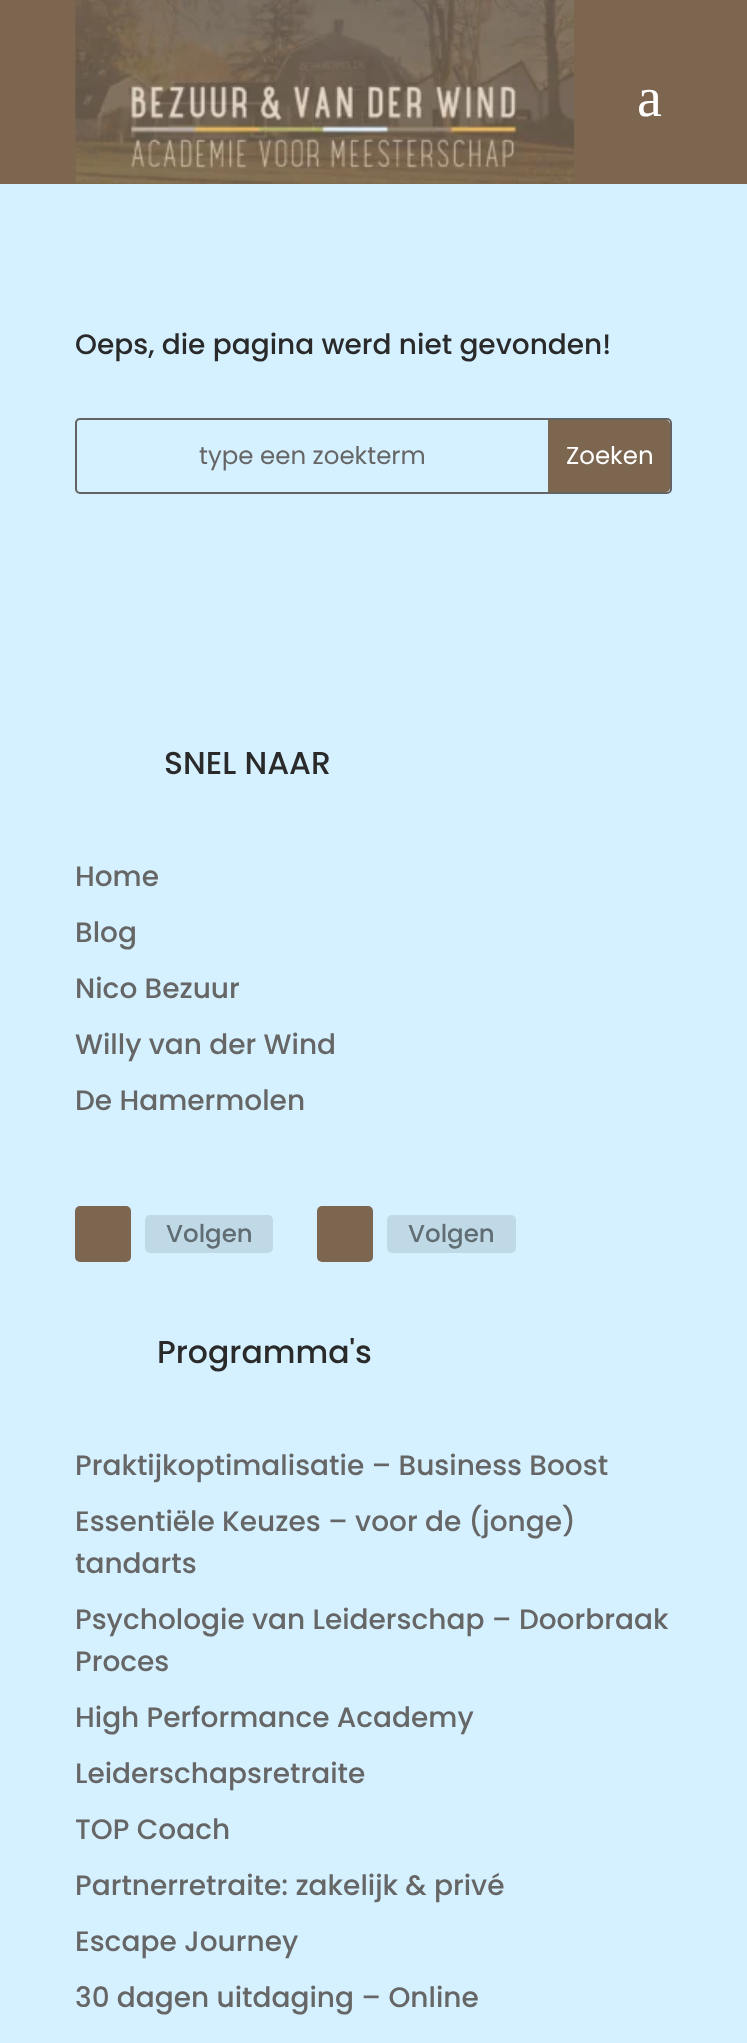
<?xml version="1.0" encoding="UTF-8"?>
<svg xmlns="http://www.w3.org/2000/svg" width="747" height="2043">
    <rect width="100%" height="100%" fill="#D5F1FF"/>
    <rect x="0" y="0" width="747" height="184" fill="#7C664F"/>
    <image x="75" y="0" width="499" height="184" href="img_01.png"/>
    <text x="637" y="116" font-family="Liberation Serif" font-size="56" fill="#FFFFFF">a</text>
    <text x="75" y="354" font-family="Poppins" font-size="28" font-weight="500" fill="#2A2A2A">Oeps, die pagina werd niet gevonden!</text>
    <rect x="76" y="419" width="595" height="74" rx="4" fill="none" stroke="#636363" stroke-width="2"/>
    <text x="199" y="464" font-family="Poppins" font-size="24.5" fill="#666666">type een zoekterm</text>
    <path d="M 548 420 H 666 C 668 420 670 422 670 424 V 488 C 670 490 668 492 666 492 H 548 Z" fill="#7C664F"/>
    <text x="566" y="464" font-family="Poppins" font-size="24.5" fill="#FFFFFF">Zoeken</text>
    <text x="164" y="774" font-family="Poppins" font-size="31.5" font-weight="500" fill="#2A2A2A">SNEL NAAR</text>
    <text x="75" y="886" font-family="Poppins" font-size="28" font-weight="500" fill="#666666">Home</text>
    <text x="75" y="942" font-family="Poppins" font-size="28" font-weight="500" fill="#666666">Blog</text>
    <text x="75" y="998" font-family="Poppins" font-size="28" font-weight="500" fill="#666666">Nico Bezuur</text>
    <text x="75" y="1054" font-family="Poppins" font-size="28" font-weight="500" fill="#666666">Willy van der Wind</text>
    <text x="75" y="1110" font-family="Poppins" font-size="28" font-weight="500" fill="#666666">De Hamermolen</text>
    <rect x="75" y="1206" width="56" height="56" rx="5" fill="#7C664F"/>
    <rect x="145" y="1215" width="128" height="38" rx="5" fill="#C0D9E6"/>
    <text x="166" y="1242" font-family="Poppins" font-size="24.5" font-weight="500" fill="#606D73">Volgen</text>
    <rect x="317" y="1206" width="56" height="56" rx="5" fill="#7C664F"/>
    <rect x="387" y="1215" width="129" height="38" rx="5" fill="#C0D9E6"/>
    <text x="408" y="1242" font-family="Poppins" font-size="24.5" font-weight="500" fill="#606D73">Volgen</text>
    <text x="157" y="1363" font-family="Poppins" font-size="31.5" font-weight="500" fill="#2A2A2A">Programma's</text>
    <text x="75" y="1475" font-family="Poppins" font-size="28" font-weight="500" fill="#666666">Praktijkoptimalisatie – Business Boost</text>
    <text font-family="Poppins" font-size="28" font-weight="500" fill="#666666">
        <tspan x="75" y="1531">Essentiële Keuzes – voor de (jonge)</tspan>
        <tspan x="75" y="1573">tandarts</tspan>
    </text>
    <text font-family="Poppins" font-size="28" font-weight="500" fill="#666666">
        <tspan x="75" y="1629">Psychologie van Leiderschap – Doorbraak</tspan>
        <tspan x="75" y="1671">Proces</tspan>
    </text>
    <text x="75" y="1727" font-family="Poppins" font-size="28" font-weight="500" fill="#666666">High Performance Academy</text>
    <text x="75" y="1783" font-family="Poppins" font-size="28" font-weight="500" fill="#666666">Leiderschapsretraite</text>
    <text x="75" y="1839" font-family="Poppins" font-size="28" font-weight="500" fill="#666666">TOP Coach</text>
    <text x="75" y="1895" font-family="Poppins" font-size="28" font-weight="500" fill="#666666">Partnerretraite: zakelijk &amp; privé</text>
    <text x="75" y="1951" font-family="Poppins" font-size="28" font-weight="500" fill="#666666">Escape Journey</text>
    <text x="75" y="2007" font-family="Poppins" font-size="28" font-weight="500" fill="#666666">30 dagen uitdaging – Online</text>
</svg>
